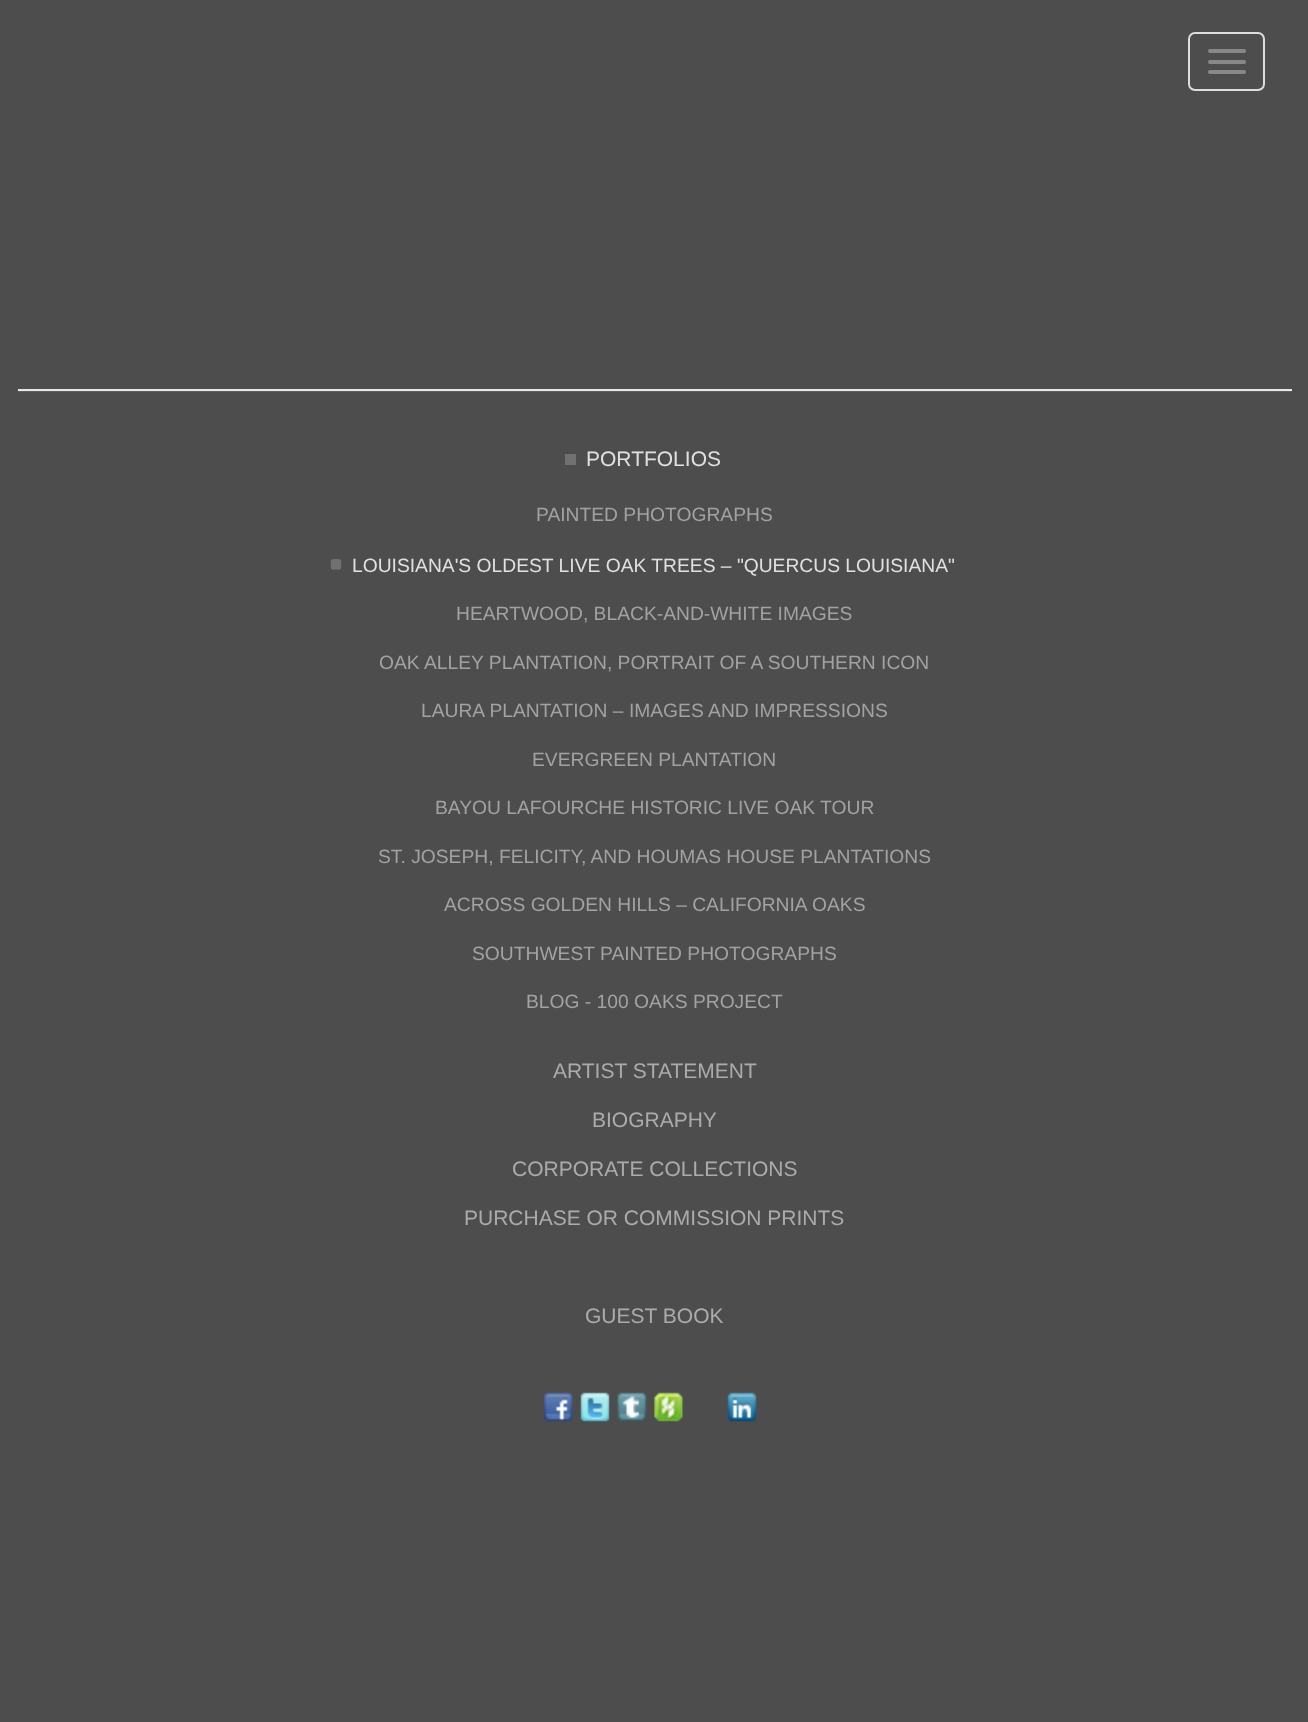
<?xml version="1.0" encoding="UTF-8"?>
<svg xmlns="http://www.w3.org/2000/svg" width="1308" height="1722">
    <rect width="100%" height="100%" fill="#4D4D4D"/>
    <rect x="1189" y="33" width="75" height="57" rx="6" fill="none" stroke="#DDDDDD" stroke-width="2"/>
    <rect x="1208" y="49" width="38" height="4" rx="2" fill="#888888"/>
    <rect x="1208" y="60" width="38" height="4" rx="2" fill="#888888"/>
    <rect x="1208" y="70" width="38" height="4" rx="2" fill="#888888"/>
    <rect x="18" y="391" width="1274" height="1" fill="#5F5F5F"/>
    <rect x="18" y="389" width="1274" height="2" fill="#E7E7E7"/>
    <rect x="565" y="454" width="11" height="11" fill="#717171"/>
    <text x="586" y="466" font-family="Liberation Sans" font-size="21" fill="#E0E0E0">PORTFOLIOS</text>
    <text x="536" y="521" font-family="Liberation Sans" font-size="19.25" fill="#A2A2A2">PAINTED PHOTOGRAPHS</text>
    <image x="330" y="559" width="12" height="11" href="img_01.png"/>
    <text x="352" y="572" font-family="Liberation Sans" font-size="19.25" fill="#E0E0E0">LOUISIANA'S OLDEST LIVE OAK TREES – "QUERCUS LOUISIANA"</text>
    <text x="456" y="620" font-family="Liberation Sans" font-size="19.25" fill="#A2A2A2">HEARTWOOD, BLACK-AND-WHITE IMAGES</text>
    <text x="379" y="669" font-family="Liberation Sans" font-size="19.25" fill="#A2A2A2">OAK ALLEY PLANTATION, PORTRAIT OF A SOUTHERN ICON</text>
    <text x="421" y="717" font-family="Liberation Sans" font-size="19.25" fill="#A2A2A2">LAURA PLANTATION – IMAGES AND IMPRESSIONS</text>
    <text x="532" y="766" font-family="Liberation Sans" font-size="19.25" fill="#A2A2A2">EVERGREEN PLANTATION</text>
    <text x="435" y="814" font-family="Liberation Sans" font-size="19.25" fill="#A2A2A2">BAYOU LAFOURCHE HISTORIC LIVE OAK TOUR</text>
    <text x="378" y="863" font-family="Liberation Sans" font-size="19.25" fill="#A2A2A2">ST. JOSEPH, FELICITY, AND HOUMAS HOUSE PLANTATIONS</text>
    <text x="444" y="911" font-family="Liberation Sans" font-size="19.25" fill="#A2A2A2">ACROSS GOLDEN HILLS – CALIFORNIA OAKS</text>
    <text x="472" y="960" font-family="Liberation Sans" font-size="19.25" fill="#A2A2A2">SOUTHWEST PAINTED PHOTOGRAPHS</text>
    <text x="526" y="1008" font-family="Liberation Sans" font-size="19.25" fill="#A2A2A2">BLOG - 100 OAKS PROJECT</text>
    <text x="553" y="1078" font-family="Liberation Sans" font-size="21" fill="#ABABAB">ARTIST STATEMENT</text>
    <text x="592" y="1127" font-family="Liberation Sans" font-size="21" fill="#ABABAB">BIOGRAPHY</text>
    <text x="512" y="1176" font-family="Liberation Sans" font-size="21" fill="#ABABAB">CORPORATE COLLECTIONS</text>
    <text x="464" y="1225" font-family="Liberation Sans" font-size="21" fill="#ABABAB">PURCHASE OR COMMISSION PRINTS</text>
    <text x="585" y="1323" font-family="Liberation Sans" font-size="21" fill="#ABABAB">GUEST BOOK</text>
    <image x="544" y="1392" width="29" height="30" href="img_02.png"/>
    <image x="580" y="1392" width="30" height="30" href="img_03.png"/>
    <image x="617" y="1392" width="30" height="30" href="img_04.png"/>
    <image x="654" y="1392" width="30" height="30" href="img_05.png"/>
    <image x="727" y="1392" width="30" height="30" href="img_06.png"/>
</svg>
